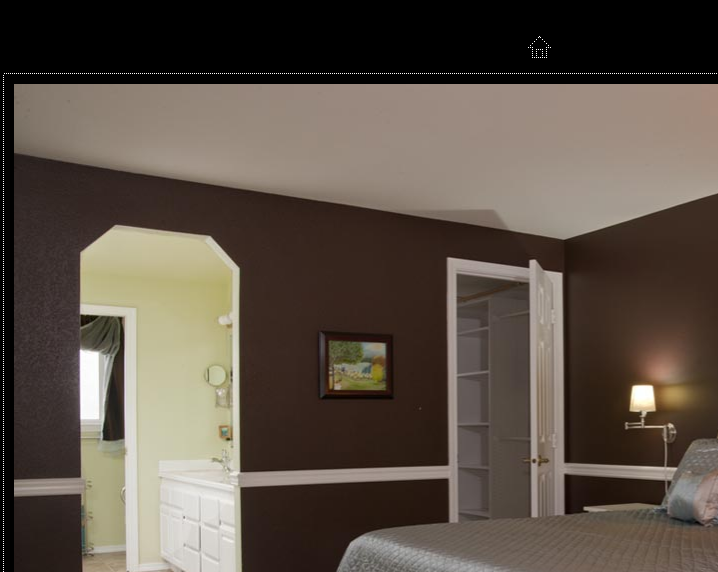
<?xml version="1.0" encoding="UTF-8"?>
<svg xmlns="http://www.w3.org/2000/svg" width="718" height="572">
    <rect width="100%" height="100%" fill="#000000"/>
    <image x="528" y="36" width="23" height="22" href="img_01.png"/>
    <image x="4" y="73" width="713" height="1" href="img_02.png"/>
    <image x="3" y="75" width="1" height="497" href="img_03.png"/>
    <image x="14" y="84" width="704" height="488" href="img_04.png"/>
</svg>
